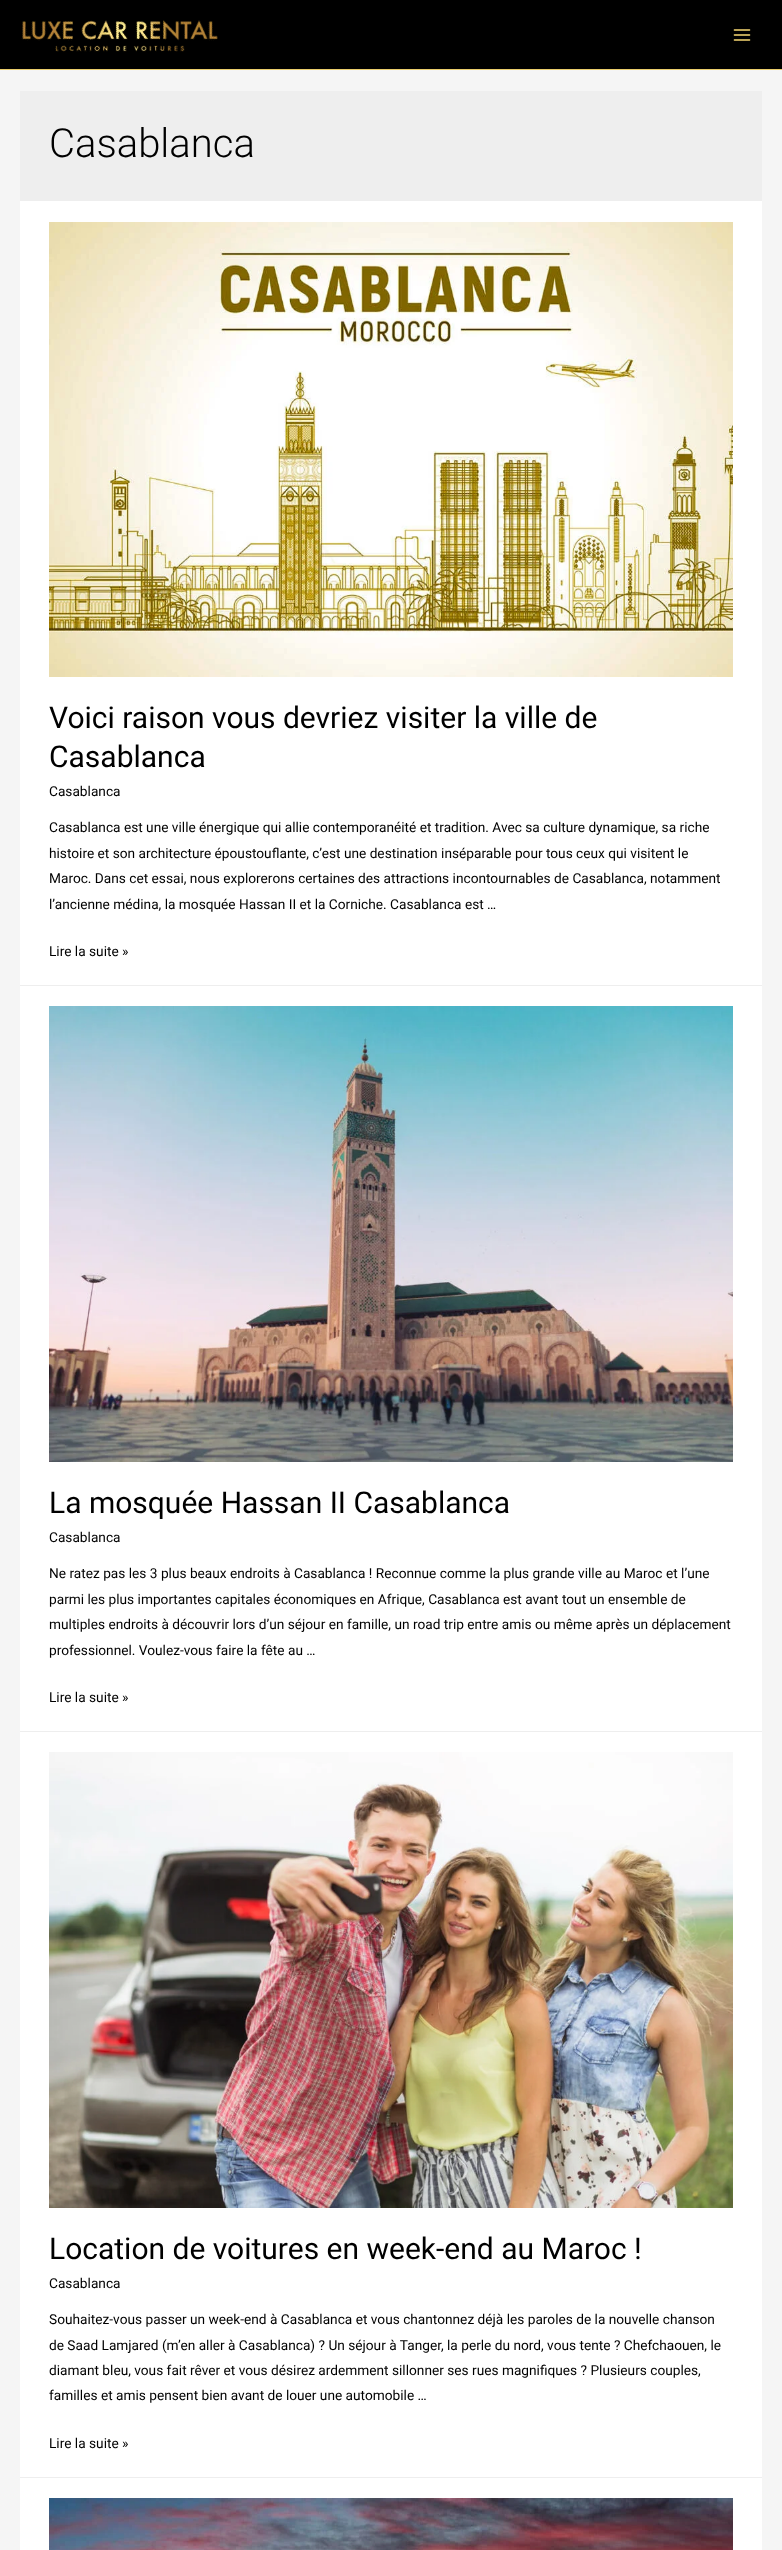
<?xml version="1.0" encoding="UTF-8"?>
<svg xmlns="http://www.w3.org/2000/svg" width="782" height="2550">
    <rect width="100%" height="100%" fill="#F5F5F5"/>
    <rect x="0" y="0" width="782" height="69" fill="#000000"/>
    <rect x="0" y="69" width="782" height="1" fill="#EACD6C"/>
    <image x="21" y="20" width="197" height="32" href="img_01.png"/>
    <image x="733" y="29" width="18" height="12" href="img_02.png"/>
    <rect x="20" y="91" width="742" height="110" fill="#EEEEEE"/>
    <text x="49" y="157" font-family="Roboto" font-size="40" font-weight="300" fill="#000000">Casablanca</text>
    <rect x="20" y="201" width="742" height="784" fill="#FFFFFF"/>
    <rect x="20" y="985" width="742" height="1" fill="#EEEEEE"/>
    <image x="49" y="222" width="684" height="455" href="img_03.png"/>
    <text font-family="Roboto" font-size="30" fill="#000000">
        <tspan x="49" y="728">Voici raison vous devriez visiter la ville de</tspan>
        <tspan x="49" y="767">Casablanca</tspan>
    </text>
    <text x="49" y="796" font-family="Roboto" font-size="13.7" fill="#000000">Casablanca</text>
    <text font-family="Roboto" font-size="13.7" fill="#000000">
        <tspan x="49" y="832">Casablanca est une ville énergique qui allie contemporanéité et tradition. Avec sa culture dynamique, sa riche</tspan>
        <tspan x="49" y="858">histoire et son architecture époustouflante, c’est une destination inséparable pour tous ceux qui visitent le</tspan>
        <tspan x="49" y="883">Maroc. Dans cet essai, nous explorerons certaines des attractions incontournables de Casablanca, notamment</tspan>
        <tspan x="49" y="909">l’ancienne médina, la mosquée Hassan II et la Corniche. Casablanca est …</tspan>
    </text>
    <text x="49" y="956" font-family="Roboto" font-size="13.7" fill="#000000">Lire la suite »</text>
    <rect x="20" y="986" width="742" height="745" fill="#FFFFFF"/>
    <rect x="20" y="1731" width="742" height="1" fill="#EEEEEE"/>
    <image x="49" y="1006" width="684" height="456" href="img_04.png"/>
    <text x="49" y="1513" font-family="Roboto" font-size="30" fill="#000000">La mosquée Hassan II Casablanca</text>
    <text x="49" y="1542" font-family="Roboto" font-size="13.7" fill="#000000">Casablanca</text>
    <text font-family="Roboto" font-size="13.7" fill="#000000">
        <tspan x="49" y="1578">Ne ratez pas les 3 plus beaux endroits à Casablanca ! Reconnue comme la plus grande ville au Maroc et l’une</tspan>
        <tspan x="49" y="1604">parmi les plus importantes capitales économiques en Afrique, Casablanca est avant tout un ensemble de</tspan>
        <tspan x="49" y="1629">multiples endroits à découvrir lors d’un séjour en famille, un road trip entre amis ou même après un déplacement</tspan>
        <tspan x="49" y="1655">professionnel. Voulez-vous faire la fête au …</tspan>
    </text>
    <text x="49" y="1702" font-family="Roboto" font-size="13.7" fill="#000000">Lire la suite »</text>
    <rect x="20" y="1732" width="742" height="745" fill="#FFFFFF"/>
    <rect x="20" y="2477" width="742" height="1" fill="#EEEEEE"/>
    <image x="49" y="1752" width="684" height="456" href="img_05.png"/>
    <text x="49" y="2259" font-family="Roboto" font-size="30" fill="#000000">Location de voitures en week-end au Maroc !</text>
    <text x="49" y="2288" font-family="Roboto" font-size="13.7" fill="#000000">Casablanca</text>
    <text font-family="Roboto" font-size="13.7" fill="#000000">
        <tspan x="49" y="2324">Souhaitez-vous passer un week-end à Casablanca et vous chantonnez déjà les paroles de la nouvelle chanson</tspan>
        <tspan x="49" y="2350">de Saad Lamjared (m’en aller à Casablanca) ? Un séjour à Tanger, la perle du nord, vous tente ? Chefchaouen, le</tspan>
        <tspan x="49" y="2375">diamant bleu, vous fait rêver et vous désirez ardemment sillonner ses rues magnifiques ? Plusieurs couples,</tspan>
        <tspan x="49" y="2400">familles et amis pensent bien avant de louer une automobile …</tspan>
    </text>
    <text x="49" y="2448" font-family="Roboto" font-size="13.7" fill="#000000">Lire la suite »</text>
    <rect x="20" y="2478" width="742" height="72" fill="#FFFFFF"/>
    <image x="49" y="2498" width="684" height="52" href="img_06.png"/>
</svg>
